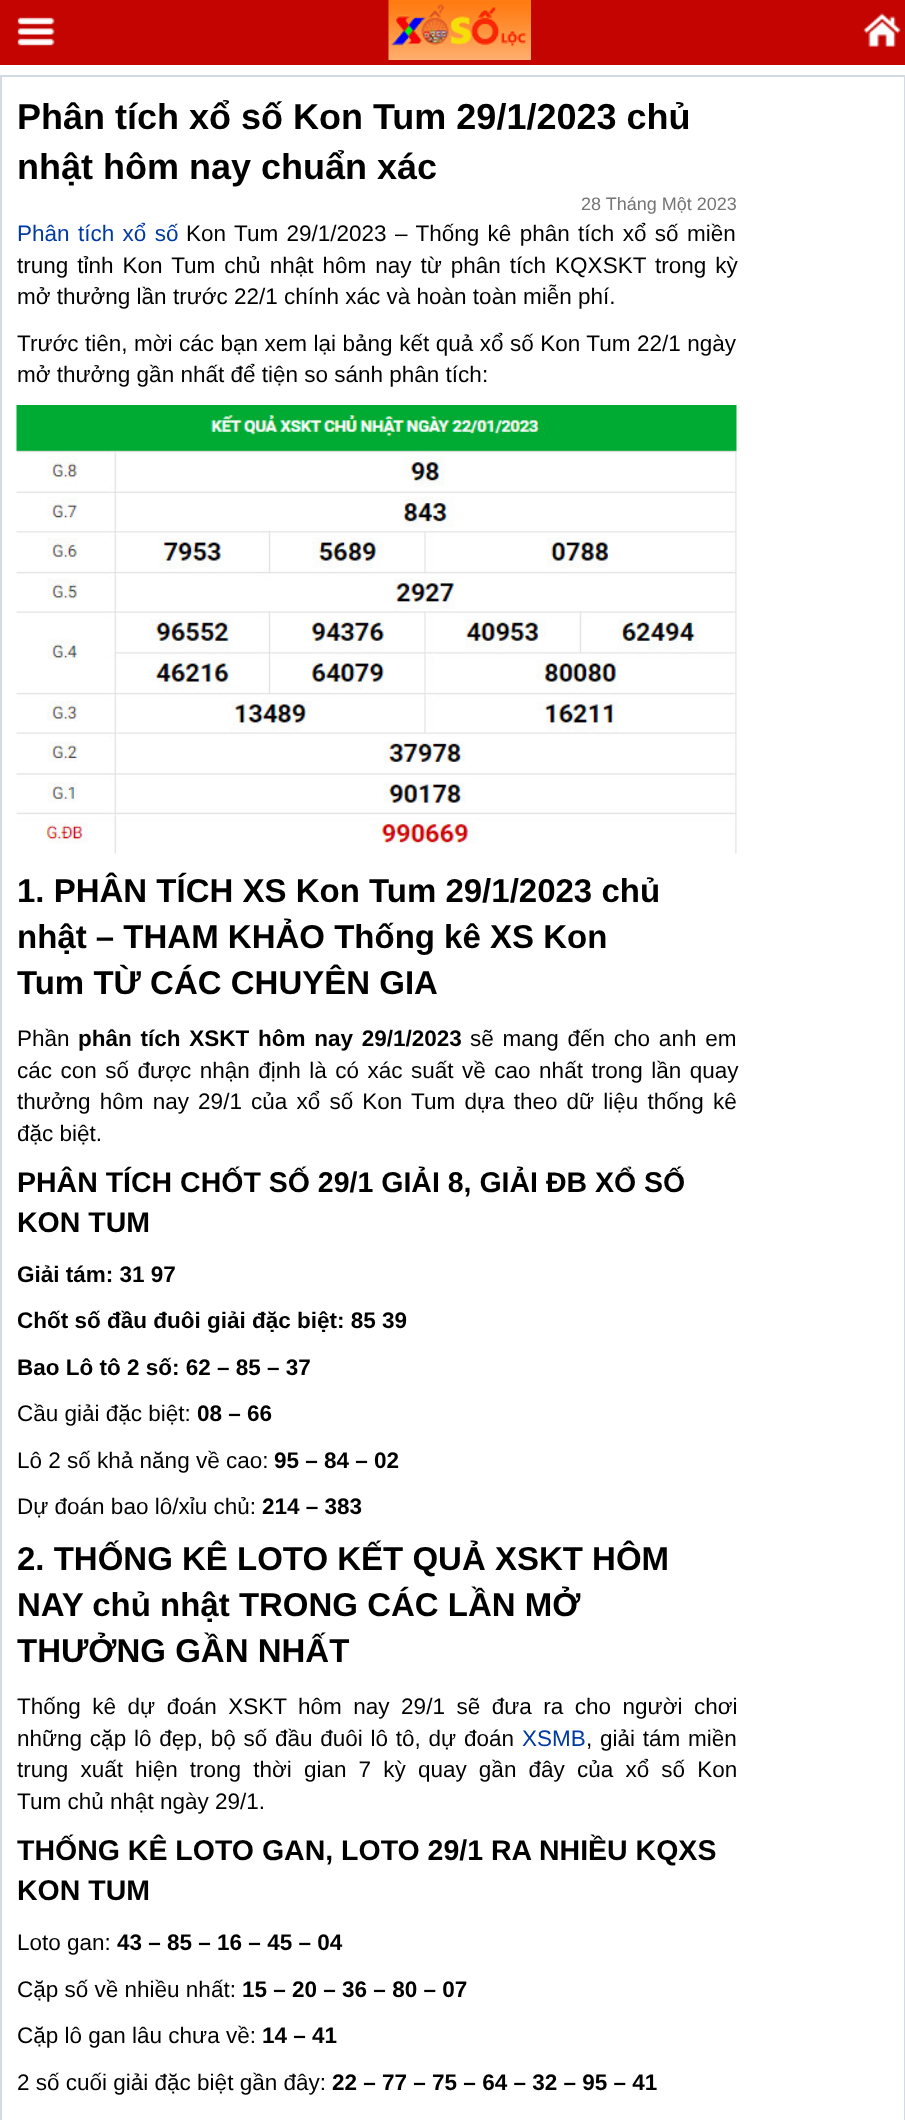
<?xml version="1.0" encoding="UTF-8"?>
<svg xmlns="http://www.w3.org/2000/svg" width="905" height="2120">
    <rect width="100%" height="100%" fill="#FFFFFF"/>
    <rect x="0" y="0" width="905" height="65" fill="#C30400"/>
    <image x="17" y="17" width="38" height="29" href="img_01.png"/>
    <image x="388" y="0" width="143" height="60" href="img_02.png"/>
    <image x="863" y="13" width="38" height="34" href="img_03.png"/>
    <rect x="1" y="76" width="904" height="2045" fill="none" stroke="#D2DAE3" stroke-width="2"/>
    <text font-family="Liberation Sans" font-size="36" font-weight="700" fill="#000000">
        <tspan x="17" y="129">Phân tích xổ số Kon Tum 29/1/2023 chủ</tspan>
        <tspan x="17" y="179">nhật hôm nay chuẩn xác</tspan>
    </text>
    <text x="581" y="210" font-family="Liberation Sans" font-size="18" fill="#757575">28 Tháng Một 2023</text>
    <text x="17" y="241" word-spacing="2.1" font-family="Liberation Sans" font-size="22.5" fill="#003AA2">Phân tích xổ số</text>
    <text x="186" y="241" word-spacing="2.1" font-family="Liberation Sans" font-size="22.5" fill="#000000">Kon Tum 29/1/2023 – Thống kê phân tích xổ số miền</text>
    <text font-family="Liberation Sans" font-size="22.5" fill="#000000">
        <tspan x="17" y="273" word-spacing="2.75">trung tỉnh Kon Tum chủ nhật hôm nay từ phân tích KQXSKT trong kỳ</tspan>
        <tspan x="17" y="304">mở thưởng lần trước 22/1 chính xác và hoàn toàn miễn phí.</tspan>
    </text>
    <text font-family="Liberation Sans" font-size="22.5" fill="#000000">
        <tspan x="17" y="351" word-spacing="0.25">Trước tiên, mời các bạn xem lại bảng kết quả xổ số Kon Tum 22/1 ngày</tspan>
        <tspan x="17" y="382">mở thưởng gần nhất để tiện so sánh phân tích:</tspan>
    </text>
    <image x="16" y="405" width="721" height="449" href="img_04.png"/>
    <text font-family="Liberation Sans" font-size="33" font-weight="700" fill="#000000">
        <tspan x="17" y="902">1. PHÂN TÍCH XS Kon Tum 29/1/2023 chủ</tspan>
        <tspan x="17" y="948">nhật – THAM KHẢO Thống kê XS Kon</tspan>
        <tspan x="17" y="994">Tum TỪ CÁC CHUYÊN GIA</tspan>
    </text>
    <text x="17" y="1046" font-family="Liberation Sans" font-size="22.5" fill="#000000">Phần</text>
    <text x="78" y="1046" word-spacing="2.5" font-family="Liberation Sans" font-size="22.5" font-weight="700" fill="#000000">phân tích XSKT hôm nay 29/1/2023</text>
    <text x="470" y="1046" word-spacing="2.5" font-family="Liberation Sans" font-size="22.5" fill="#000000">sẽ mang đến cho anh em</text>
    <text font-family="Liberation Sans" font-size="22.5" fill="#000000">
        <tspan x="17" y="1078" word-spacing="2.25">các con số được nhận định là có xác suất về cao nhất trong lần quay</tspan>
        <tspan x="17" y="1109" word-spacing="2.9">thưởng hôm nay 29/1 của xổ số Kon Tum dựa theo dữ liệu thống kê</tspan>
        <tspan x="17" y="1141">đặc biệt.</tspan>
    </text>
    <text font-family="Liberation Sans" font-size="28.5" font-weight="700" fill="#000000">
        <tspan x="17" y="1192">PHÂN TÍCH CHỐT SỐ 29/1 GIẢI 8, GIẢI ĐB XỔ SỐ</tspan>
        <tspan x="17" y="1232">KON TUM</tspan>
    </text>
    <text x="17" y="1282" font-family="Liberation Sans" font-size="22.5" font-weight="700" fill="#000000">Giải tám: 31 97</text>
    <text x="17" y="1328" font-family="Liberation Sans" font-size="22.5" font-weight="700" fill="#000000">Chốt số đầu đuôi giải đặc biệt: 85 39</text>
    <text x="17" y="1375" font-family="Liberation Sans" font-size="22.5" font-weight="700" fill="#000000">Bao Lô tô 2 số: 62 – 85 – 37</text>
    <text x="17" y="1421" font-family="Liberation Sans" font-size="22.5" fill="#000000">Cầu giải đặc biệt:</text>
    <text x="197" y="1421" font-family="Liberation Sans" font-size="22.5" font-weight="700" fill="#000000">08 – 66</text>
    <text x="17" y="1468" font-family="Liberation Sans" font-size="22.5" fill="#000000">Lô 2 số khả năng về cao:</text>
    <text x="274" y="1468" font-family="Liberation Sans" font-size="22.5" font-weight="700" fill="#000000">95 – 84 – 02</text>
    <text x="17" y="1514" font-family="Liberation Sans" font-size="22.5" fill="#000000">Dự đoán bao lô/xỉu chủ:</text>
    <text x="262" y="1514" font-family="Liberation Sans" font-size="22.5" font-weight="700" fill="#000000">214 – 383</text>
    <text font-family="Liberation Sans" font-size="33" font-weight="700" fill="#000000">
        <tspan x="17" y="1570">2. THỐNG KÊ LOTO KẾT QUẢ XSKT HÔM</tspan>
        <tspan x="17" y="1616">NAY chủ nhật TRONG CÁC LẦN MỞ</tspan>
        <tspan x="17" y="1662">THƯỞNG GẦN NHẤT</tspan>
    </text>
    <text font-family="Liberation Sans" font-size="22.5" fill="#000000">
        <tspan x="17" y="1714" word-spacing="5.25">Thống kê dự đoán XSKT hôm nay 29/1 sẽ đưa ra cho người chơi</tspan>
        <tspan x="17" y="1746" word-spacing="1.5">những cặp lô đẹp, bộ số đầu đuôi lô tô, dự đoán</tspan>
    </text>
    <text x="522" y="1746" font-family="Liberation Sans" font-size="22.5" fill="#003AA2">XSMB</text>
    <text x="586" y="1746" word-spacing="1.5" font-family="Liberation Sans" font-size="22.5" fill="#000000">, giải tám miền</text>
    <text font-family="Liberation Sans" font-size="22.5" fill="#000000">
        <tspan x="17" y="1777" word-spacing="5.9">trung xuất hiện trong thời gian 7 kỳ quay gần đây của xổ số Kon</tspan>
        <tspan x="17" y="1809">Tum chủ nhật ngày 29/1.</tspan>
    </text>
    <text font-family="Liberation Sans" font-size="28.5" font-weight="700" fill="#000000">
        <tspan x="17" y="1860">THỐNG KÊ LOTO GAN, LOTO 29/1 RA NHIỀU KQXS</tspan>
        <tspan x="17" y="1900">KON TUM</tspan>
    </text>
    <text x="17" y="1950" font-family="Liberation Sans" font-size="22.5" fill="#000000">Loto gan:</text>
    <text x="117" y="1950" font-family="Liberation Sans" font-size="22.5" font-weight="700" fill="#000000">43 – 85 – 16 – 45 – 04</text>
    <text x="17" y="1997" font-family="Liberation Sans" font-size="22.5" fill="#000000">Cặp số về nhiều nhất:</text>
    <text x="242" y="1997" font-family="Liberation Sans" font-size="22.5" font-weight="700" fill="#000000">15 – 20 – 36 – 80 – 07</text>
    <text x="17" y="2043" font-family="Liberation Sans" font-size="22.5" fill="#000000">Cặp lô gan lâu chưa về:</text>
    <text x="262" y="2043" font-family="Liberation Sans" font-size="22.5" font-weight="700" fill="#000000">14 – 41</text>
    <text x="17" y="2090" font-family="Liberation Sans" font-size="22.5" fill="#000000">2 số cuối giải đặc biệt gần đây:</text>
    <text x="332" y="2090" font-family="Liberation Sans" font-size="22.5" font-weight="700" fill="#000000">22 – 77 – 75 – 64 – 32 – 95 – 41</text>
</svg>
